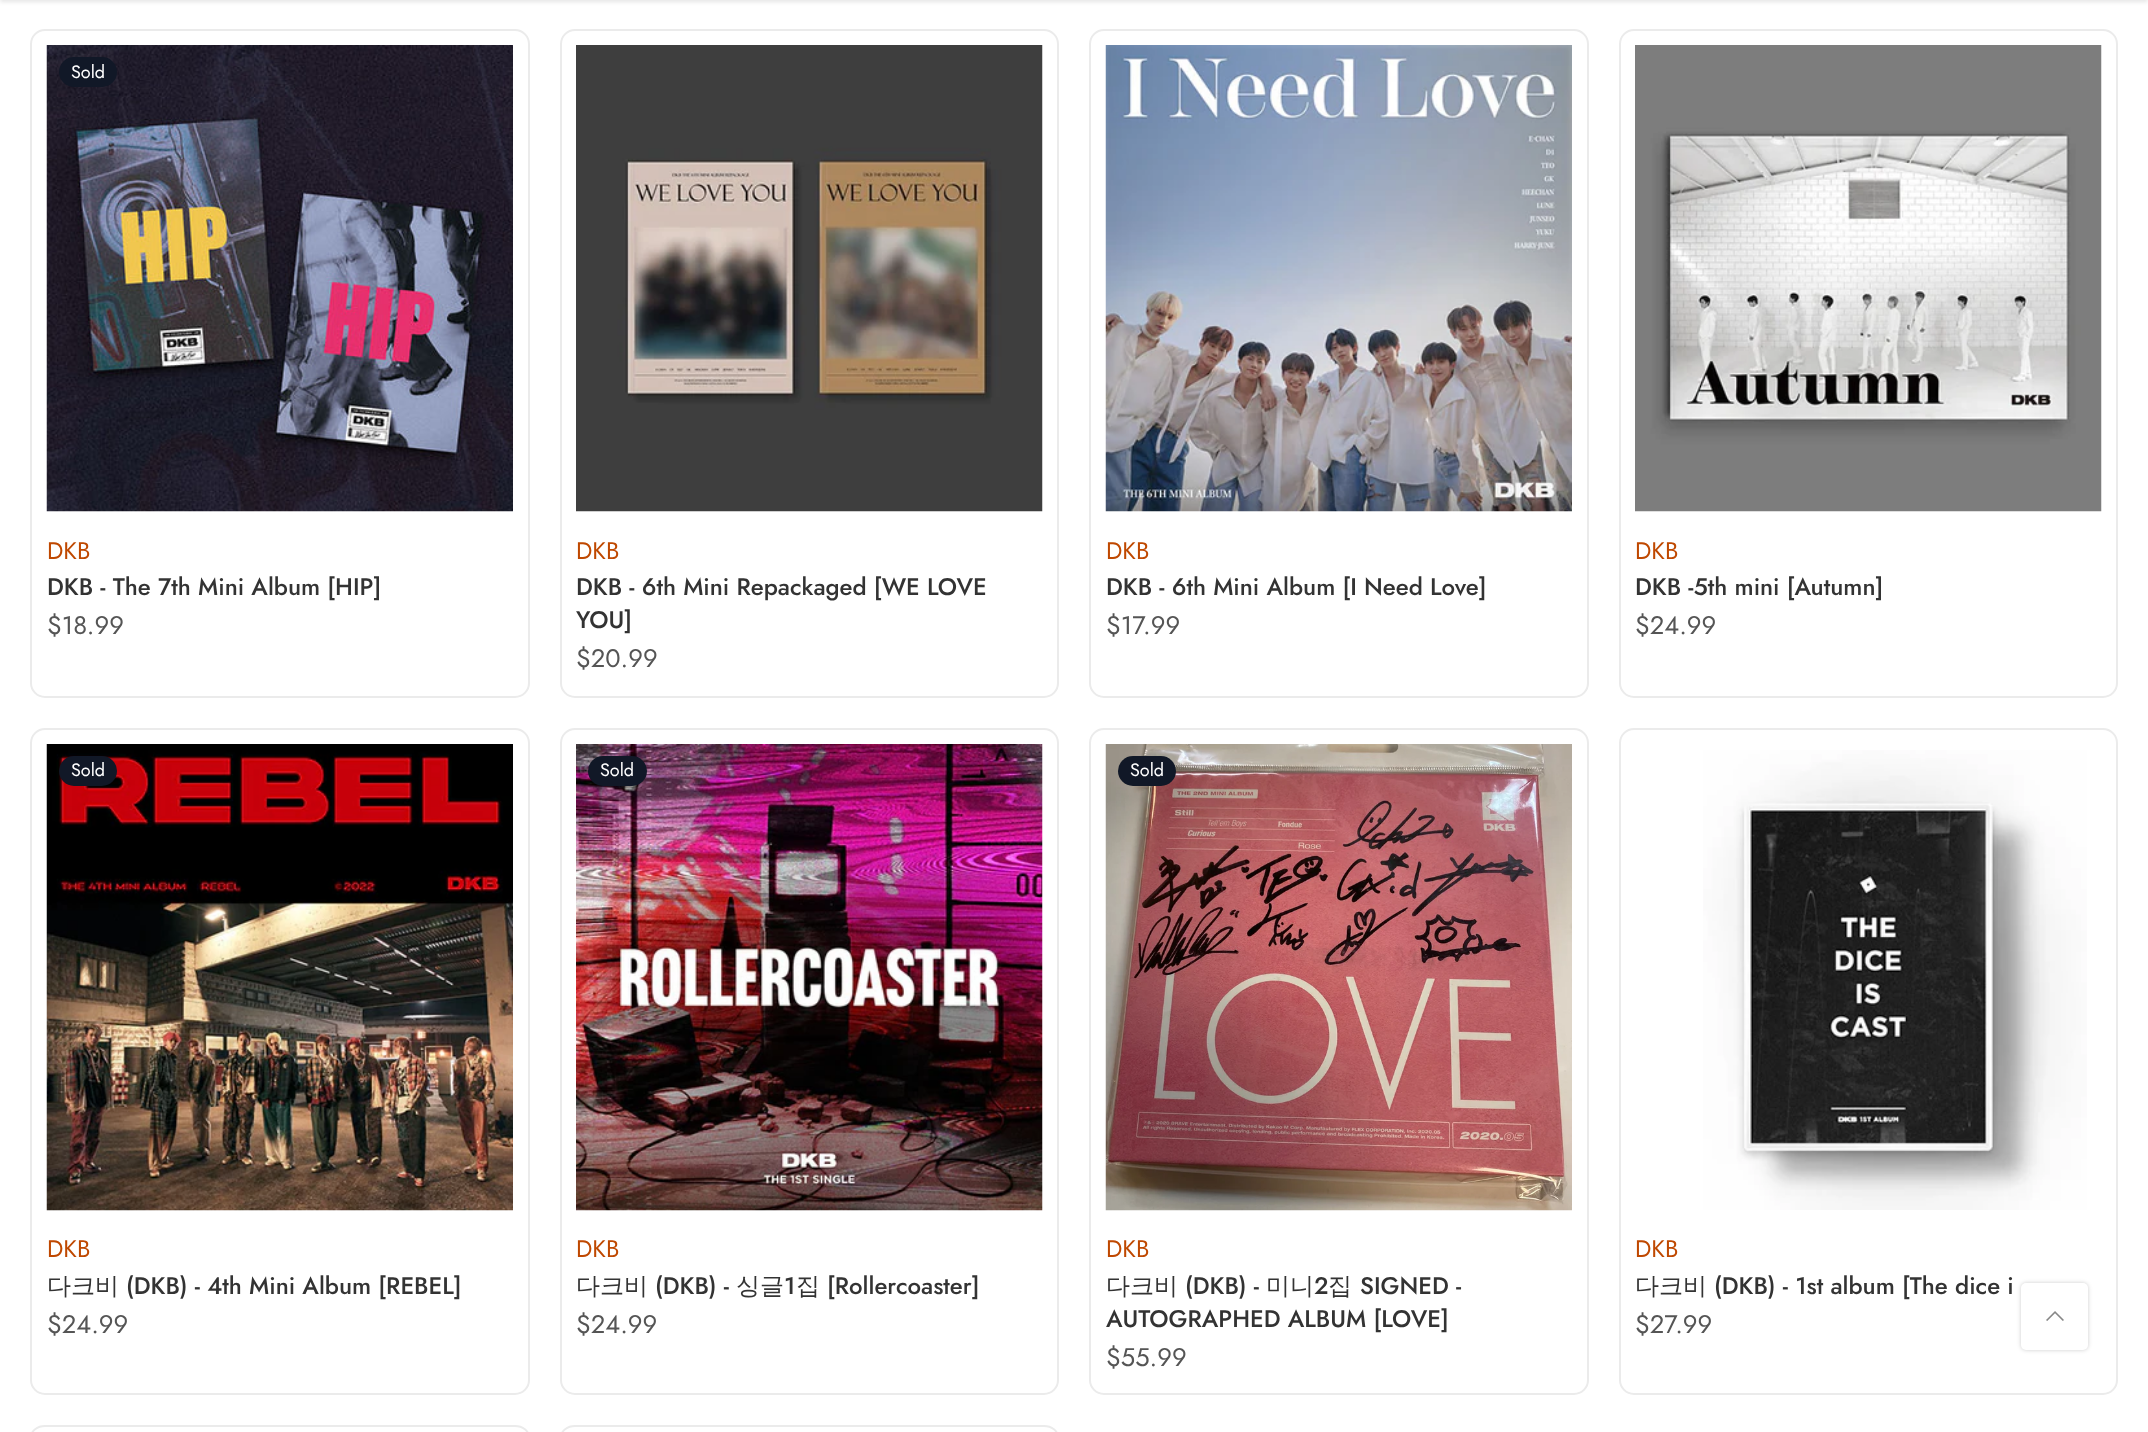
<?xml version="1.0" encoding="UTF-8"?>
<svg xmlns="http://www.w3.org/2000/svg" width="2148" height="1432">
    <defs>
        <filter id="blur1" x="-50%" y="-200%" width="200%" height="500%"><feGaussianBlur stdDeviation="2"/></filter>
    </defs>
    <rect width="100%" height="100%" fill="#FFFFFF"/>
    <rect x="0" y="-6" width="2148" height="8" fill="#000000" fill-opacity="0.1" filter="url(#blur1)"/>
    <rect x="31" y="30" width="498" height="667" rx="14" fill="none" stroke="#EBEBEB" stroke-width="2"/>
    <image x="46" y="45" width="467" height="467" href="img_01.png"/>
    <rect x="59" y="57" width="58" height="30" rx="15" fill="#111827"/>
    <text x="71" y="78" font-family="Jost" font-size="18" fill="#FFFFFF">Sold</text>
    <text x="47" y="559" font-family="Jost" font-size="24" fill="#BF4800">DKB</text>
    <text x="47" y="595" font-family="Jost" font-size="24" font-weight="500" fill="#333333">DKB - The 7th Mini Album [HIP]</text>
    <text x="47" y="634" font-family="Jost" font-size="25.5" fill="#555555">$18.99</text>
    <rect x="561" y="30" width="497" height="667" rx="14" fill="none" stroke="#EBEBEB" stroke-width="2"/>
    <image x="576" y="45" width="467" height="467" href="img_02.png"/>
    <text x="576" y="559" font-family="Jost" font-size="24" fill="#BF4800">DKB</text>
    <text font-family="Jost" font-size="24" font-weight="500" fill="#333333">
        <tspan x="576" y="595">DKB - 6th Mini Repackaged [WE LOVE</tspan>
        <tspan x="576" y="628">YOU]</tspan>
    </text>
    <text x="576" y="667" font-family="Jost" font-size="25.5" fill="#555555">$20.99</text>
    <rect x="1090" y="30" width="498" height="667" rx="14" fill="none" stroke="#EBEBEB" stroke-width="2"/>
    <image x="1105" y="45" width="467" height="467" href="img_03.png"/>
    <text x="1106" y="559" font-family="Jost" font-size="24" fill="#BF4800">DKB</text>
    <text x="1106" y="595" font-family="Jost" font-size="24" font-weight="500" fill="#333333">DKB - 6th Mini Album [I Need Love]</text>
    <text x="1106" y="634" font-family="Jost" font-size="25.5" fill="#555555">$17.99</text>
    <rect x="1620" y="30" width="497" height="667" rx="14" fill="none" stroke="#EBEBEB" stroke-width="2"/>
    <image x="1635" y="45" width="467" height="467" href="img_04.png"/>
    <text x="1635" y="559" font-family="Jost" font-size="24" fill="#BF4800">DKB</text>
    <text x="1635" y="595" font-family="Jost" font-size="24" font-weight="500" fill="#333333">DKB -5th mini [Autumn]</text>
    <text x="1635" y="634" font-family="Jost" font-size="25.5" fill="#555555">$24.99</text>
    <rect x="31" y="729" width="498" height="665" rx="14" fill="none" stroke="#EBEBEB" stroke-width="2"/>
    <image x="46" y="744" width="467" height="467" href="img_05.png"/>
    <rect x="59" y="756" width="58" height="30" rx="15" fill="#111827"/>
    <text x="71" y="776" font-family="Jost" font-size="18" fill="#FFFFFF">Sold</text>
    <text x="47" y="1257" font-family="Jost" font-size="24" fill="#BF4800">DKB</text>
    <text x="47" y="1294" font-family="WenQuanYi Zen Hei" font-size="24" font-weight="500" fill="#333333">다크비</text>
    <text x="126" y="1294" font-family="Jost" font-size="24" font-weight="500" fill="#333333">(DKB) - 4th Mini Album [REBEL]</text>
    <text x="47" y="1333" font-family="Jost" font-size="25.5" fill="#555555">$24.99</text>
    <rect x="561" y="729" width="497" height="665" rx="14" fill="none" stroke="#EBEBEB" stroke-width="2"/>
    <image x="576" y="744" width="467" height="467" href="img_06.png"/>
    <rect x="588" y="756" width="59" height="30" rx="15" fill="#111827"/>
    <text x="600" y="776" font-family="Jost" font-size="18" fill="#FFFFFF">Sold</text>
    <text x="576" y="1257" font-family="Jost" font-size="24" fill="#BF4800">DKB</text>
    <text x="576" y="1294" font-family="WenQuanYi Zen Hei" font-size="24" font-weight="500" fill="#333333">다크비</text>
    <text x="655" y="1294" font-family="Jost" font-size="24" font-weight="500" fill="#333333">(DKB) -</text>
    <text x="736" y="1294" font-family="WenQuanYi Zen Hei" font-size="24" font-weight="500" fill="#333333">싱글</text>
    <text x="784" y="1294" font-family="Jost" font-size="24" font-weight="500" fill="#333333">1</text>
    <text x="796" y="1294" font-family="WenQuanYi Zen Hei" font-size="24" font-weight="500" fill="#333333">집</text>
    <text x="827" y="1294" font-family="Jost" font-size="24" font-weight="500" fill="#333333">[Rollercoaster]</text>
    <text x="576" y="1333" font-family="Jost" font-size="25.5" fill="#555555">$24.99</text>
    <rect x="1090" y="729" width="498" height="665" rx="14" fill="none" stroke="#EBEBEB" stroke-width="2"/>
    <image x="1105" y="744" width="467" height="467" href="img_07.png"/>
    <rect x="1118" y="756" width="58" height="30" rx="15" fill="#111827"/>
    <text x="1130" y="776" font-family="Jost" font-size="18" fill="#FFFFFF">Sold</text>
    <text x="1106" y="1257" font-family="Jost" font-size="24" fill="#BF4800">DKB</text>
    <text x="1106" y="1294" font-family="WenQuanYi Zen Hei" font-size="24" font-weight="500" fill="#333333">다크비</text>
    <text x="1185" y="1294" font-family="Jost" font-size="24" font-weight="500" fill="#333333">(DKB) -</text>
    <text x="1266" y="1294" font-family="WenQuanYi Zen Hei" font-size="24" font-weight="500" fill="#333333">미니</text>
    <text x="1314" y="1294" font-family="Jost" font-size="24" font-weight="500" fill="#333333">2</text>
    <text x="1328" y="1294" font-family="WenQuanYi Zen Hei" font-size="24" font-weight="500" fill="#333333">집</text>
    <text x="1360" y="1294" font-family="Jost" font-size="24" font-weight="500" fill="#333333">SIGNED -</text>
    <text x="1106" y="1327" font-family="Jost" font-size="24" font-weight="500" fill="#333333">AUTOGRAPHED ALBUM [LOVE]</text>
    <text x="1106" y="1366" font-family="Jost" font-size="25.5" fill="#555555">$55.99</text>
    <rect x="1620" y="729" width="497" height="665" rx="14" fill="none" stroke="#EBEBEB" stroke-width="2"/>
    <image x="1703" y="750" width="384" height="460" href="img_08.png"/>
    <text x="1635" y="1257" font-family="Jost" font-size="24" fill="#BF4800">DKB</text>
    <text x="1635" y="1294" font-family="WenQuanYi Zen Hei" font-size="24" font-weight="500" fill="#333333">다크비</text>
    <text x="1714" y="1294" font-family="Jost" font-size="24" font-weight="500" fill="#333333">(DKB) - 1st album [The dice i</text>
    <text x="1635" y="1333" font-family="Jost" font-size="25.5" fill="#555555">$27.99</text>
    <rect x="31" y="1426" width="498" height="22" rx="14" fill="none" stroke="#EBEBEB" stroke-width="2"/>
    <rect x="561" y="1426" width="497" height="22" rx="14" fill="none" stroke="#EBEBEB" stroke-width="2"/>
    <rect x="2021" y="1283" width="67" height="67" rx="5" fill="#000000" fill-opacity="0.2" filter="url(#blur1)"/>
    <rect x="2021" y="1283" width="67" height="67" rx="5" fill="#FFFFFF"/>
    <image x="2046" y="1311" width="18" height="10" href="img_09.png"/>
</svg>
